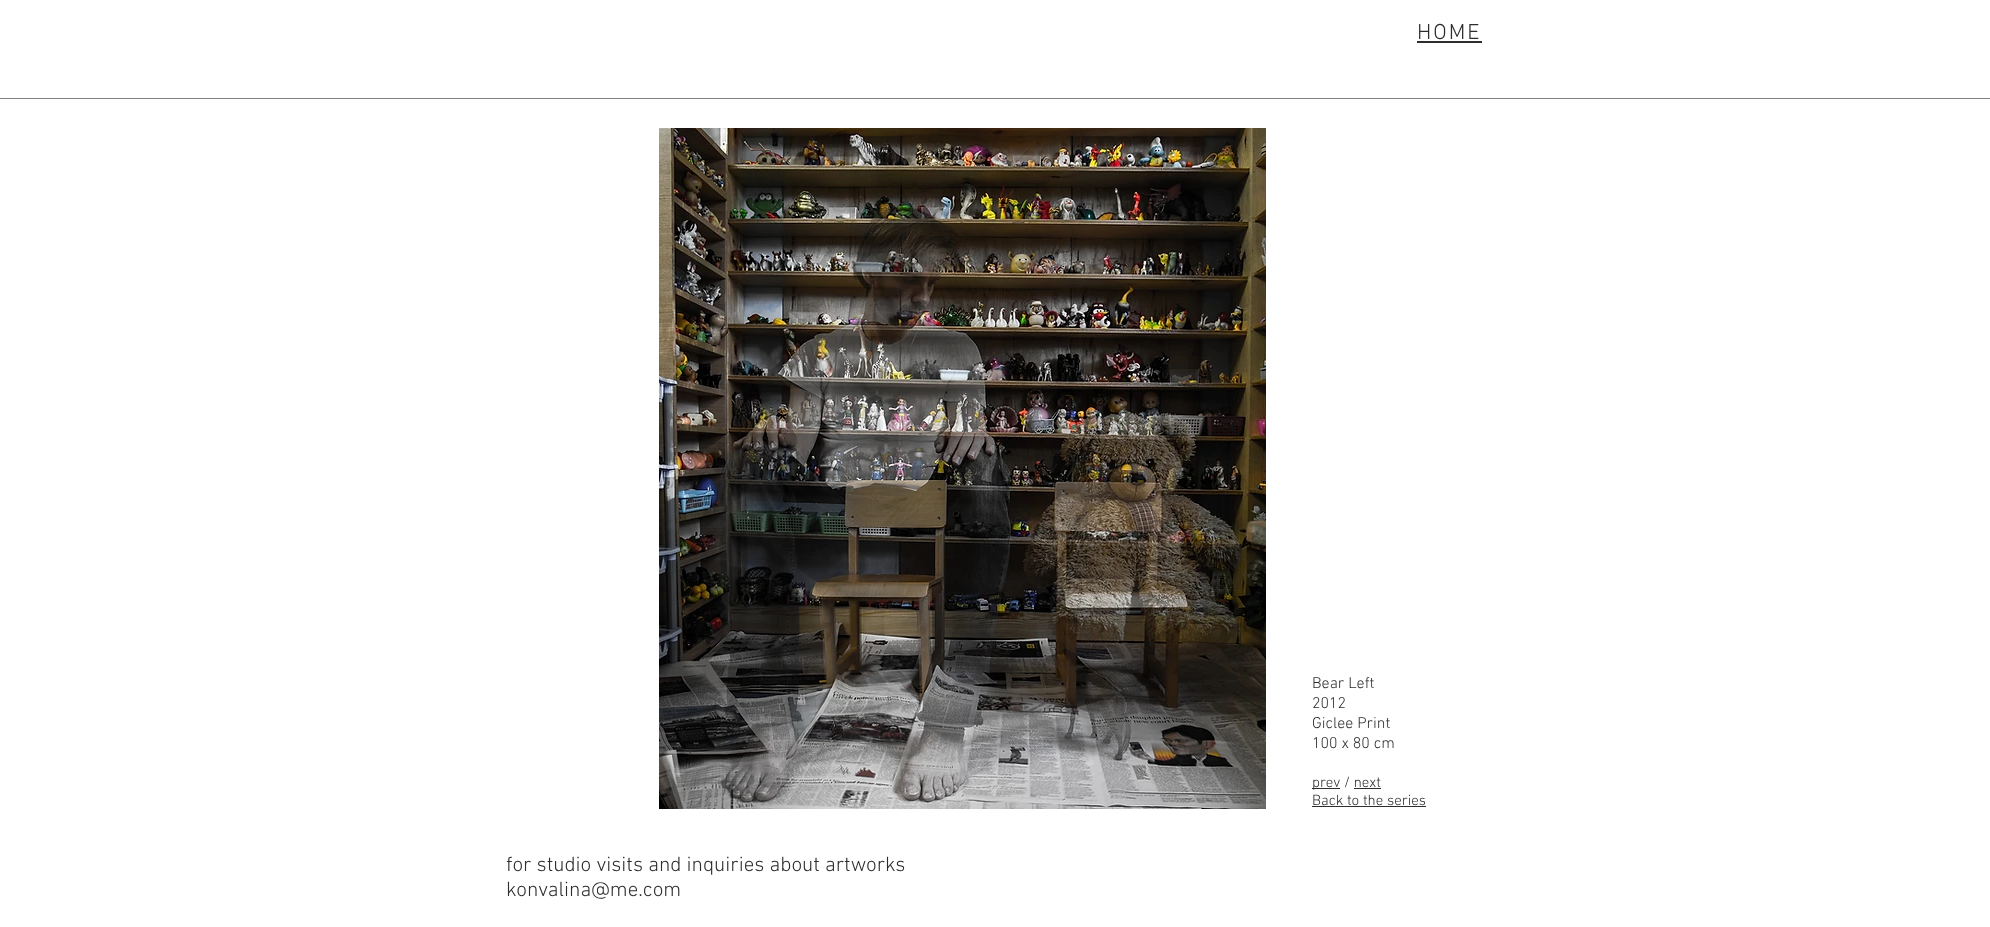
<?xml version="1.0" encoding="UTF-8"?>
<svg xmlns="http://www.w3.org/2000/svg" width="1990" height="927">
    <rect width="100%" height="100%" fill="#FFFFFF"/>
    <text x="1417" y="39" font-family="'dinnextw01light'" font-size="22" font-weight="300" letter-spacing="2" fill="#2D2D2D">HOME</text>
    <rect x="1417" y="41" width="65" height="2" fill="#2D2D2D"/>
    <rect x="0" y="98" width="1990" height="1" fill="#818181"/>
    <image x="659" y="128" width="607" height="681" href="img_01.png"/>
    <text font-family="'dinnextw01light'" font-size="16" font-weight="300" fill="#2D2D2D">
        <tspan x="1312" y="688">Bear Left</tspan>
        <tspan x="1312" y="708">2012</tspan>
        <tspan x="1312" y="728">Giclee Print</tspan>
        <tspan x="1312" y="748">100 x 80 cm</tspan>
    </text>
    <rect x="1312" y="788" width="28" height="1" fill="#2D2D2D"/>
    <text x="1312" y="787" font-family="'dinnextw01light'" font-size="15" font-weight="300" fill="#2D2D2D">prev / next</text>
    <rect x="1354" y="788" width="27" height="1" fill="#2D2D2D"/>
    <text x="1312" y="805" font-family="'dinnextw01light'" font-size="15" font-weight="300" fill="#2D2D2D">Back to the series</text>
    <rect x="1312" y="806" width="114" height="1" fill="#2D2D2D"/>
    <text font-family="'dinnextw01light'" font-size="21" font-weight="300" fill="#2D2D2D">
        <tspan x="506" y="871">for studio visits and inquiries about artworks</tspan>
        <tspan x="506" y="896">konvalina@me.com</tspan>
    </text>
</svg>
